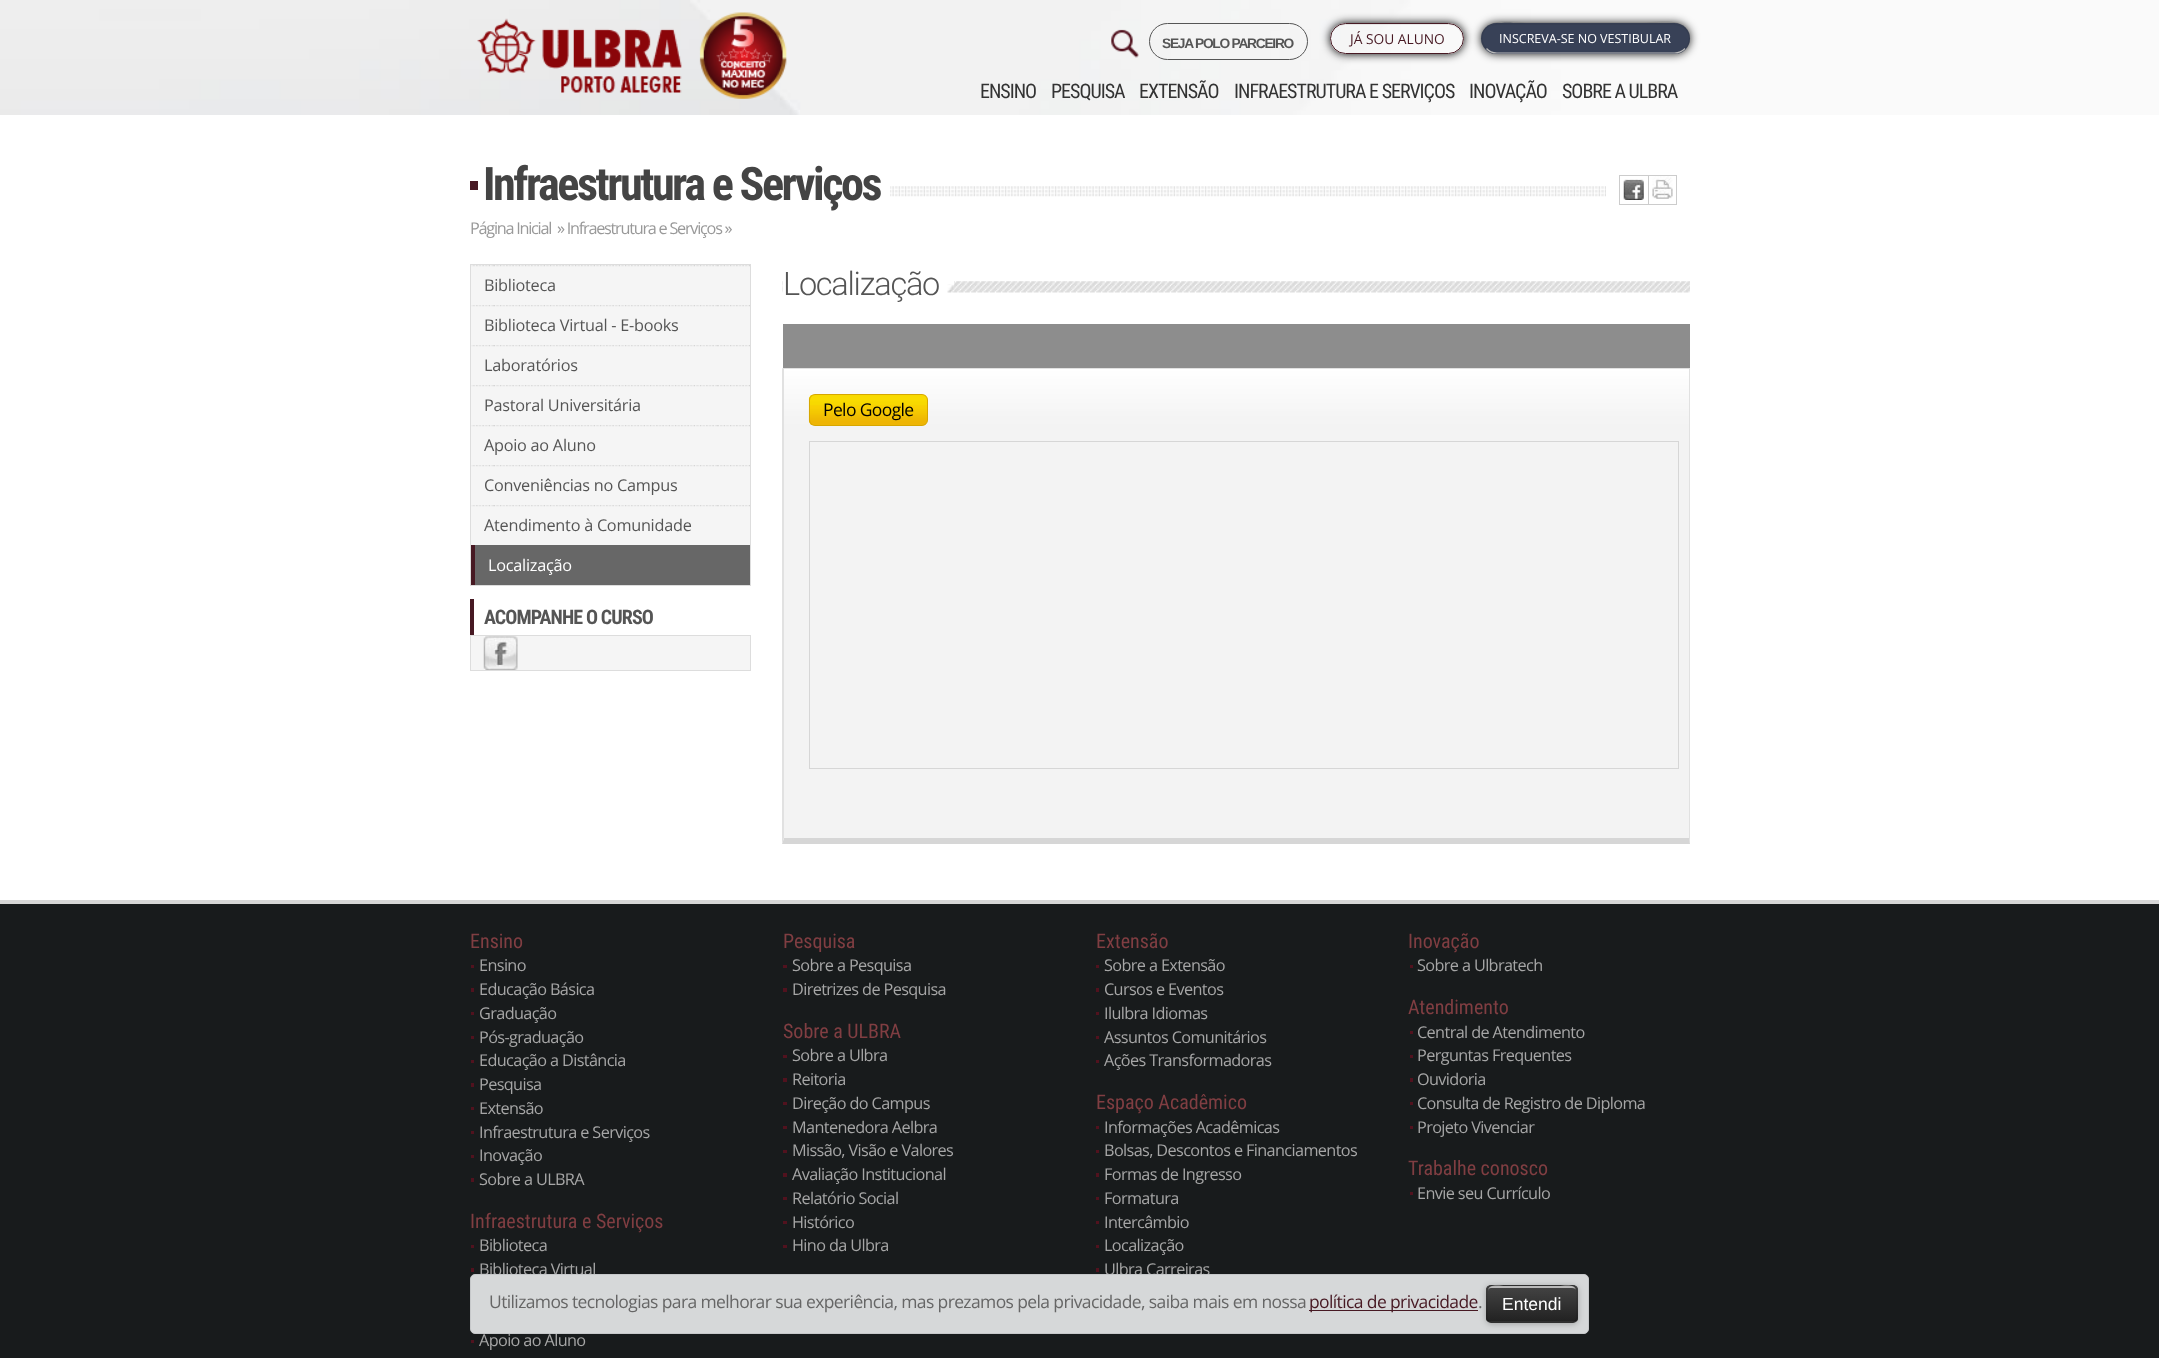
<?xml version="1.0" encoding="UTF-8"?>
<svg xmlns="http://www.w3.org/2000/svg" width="2159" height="1358">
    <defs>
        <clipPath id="clip1"><path d="M 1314 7 H 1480 V 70 H 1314 Z M 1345.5 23 H 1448.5 C 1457 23 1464 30 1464 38.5 C 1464 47 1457 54 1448.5 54 H 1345.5 C 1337 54 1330 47 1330 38.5 C 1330 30 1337 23 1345.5 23 Z" clip-rule="evenodd"/></clipPath>
        <filter id="blur1" x="-50%" y="-200%" width="200%" height="500%"><feGaussianBlur stdDeviation="5"/></filter>
        <filter id="blur2" x="-50%" y="-200%" width="200%" height="500%"><feGaussianBlur stdDeviation="3"/></filter>
        <clipPath id="clip2"><rect x="1486" y="1285" width="92" height="38" rx="5"/></clipPath>
        <linearGradient id="g1" gradientUnits="userSpaceOnUse" x1="1532" y1="1286" x2="1532" y2="1321"><stop offset="0" stop-color="#444444"/><stop offset="1" stop-color="#222222"/></linearGradient>
    </defs>
    <rect width="100%" height="100%" fill="#FFFFFF"/>
    <image x="0" y="0" width="2159" height="115" href="img_01.png"/>
    <image x="477" y="12" width="310" height="87" href="img_02.png"/>
    <image x="1111" y="29" width="28" height="29" href="img_03.png"/>
    <rect x="1149.5" y="23.5" width="158" height="36" rx="18" fill="none" stroke="#555555"/>
    <text x="1162" y="48" font-family="Liberation Sans" font-size="13.75" font-weight="700" letter-spacing="-1.25" fill="#555555">SEJA POLO PARCEIRO</text>
    <g clip-path="url(#clip1)">
        <rect x="1330" y="23" width="134" height="31" rx="15.5" fill="#000000" filter="url(#blur1)"/>
    </g>
    <path d="M 1346 25 H 1448 C 1456 25 1462 31 1462 39 C 1462 43 1461 47 1458 49 C 1461 47 1463 43 1463 38 C 1463 30 1457 24 1448 24 H 1346 C 1337 24 1331 30 1331 38 V 39 C 1331 31 1338 25 1346 25 Z" fill="#000000" fill-opacity="0.07"/>
    <rect x="1330.5" y="23.5" width="133" height="30" rx="15" fill="none" stroke="#471923"/>
    <text x="1350" y="44" font-family="Open Sans" font-size="13.75" fill="#471923">JÁ SOU ALUNO</text>
    <rect x="1481" y="23" width="209" height="31" rx="15.5" fill="#000000" fill-opacity="0.9" filter="url(#blur1)"/>
    <rect x="1481" y="23" width="209" height="31" rx="15.5" fill="#384157"/>
    <path d="M 1497 25 H 1674 C 1682 25 1689 31 1689 39 C 1689 17 1655 24 1645 24 H 1527 C 1521 24 1495 19 1487 29 C 1489 26 1493 25 1497 25 Z" fill="#363E52"/>
    <path d="M 1685 48.5 C 1682 51.5 1678.5 53 1674.5 53 H 1497 C 1493 53 1489 51.5 1486.5 48.5" fill="none" stroke="#BABABA" stroke-width="1.2"/>
    <path d="M 1486.5 48.5 C 1481 43.5 1480.5 34.5 1485.5 28.5 C 1494 18 1519.5 23 1526.5 23 H 1645 C 1652 23 1677.5 18 1686 28.5 C 1691 34.5 1690.5 43.5 1685 48.5" fill="none" stroke="#191919" stroke-opacity="0.1" stroke-width="1.2"/>
    <text x="1499" y="43" font-family="Open Sans" font-size="12.5" fill="#FFFFFF">INSCREVA-SE NO VESTIBULAR</text>
    <text x="980" y="98" font-family="Roboto Condensed" font-size="20" letter-spacing="-1" fill="#333333">ENSINO</text>
    <text x="1051" y="98" font-family="Roboto Condensed" font-size="20" letter-spacing="-1" fill="#333333">PESQUISA</text>
    <text x="1139" y="98" font-family="Roboto Condensed" font-size="20" letter-spacing="-1" fill="#333333">EXTENSÃO</text>
    <text x="1234" y="98" font-family="Roboto Condensed" font-size="20" letter-spacing="-1" fill="#333333">INFRAESTRUTURA E SERVIÇOS</text>
    <text x="1469" y="98" font-family="Roboto Condensed" font-size="20" letter-spacing="-1" fill="#333333">INOVAÇÃO</text>
    <text x="1562" y="98" font-family="Roboto Condensed" font-size="20" letter-spacing="-1" fill="#333333">SOBRE A ULBRA</text>
    <image x="890" y="186" width="716" height="11" href="img_04.png"/>
    <rect x="470" y="181" width="8" height="9" fill="#471923"/>
    <text x="483" y="200" font-family="Roboto Condensed" font-size="46.25" font-weight="700" letter-spacing="-2.5" fill="#444444">Infraestrutura e Serviços</text>
    <rect x="1676" y="175" width="1" height="30" fill="#CCCCCC"/>
    <rect x="1619" y="175" width="57" height="1" fill="#CCCCCC"/>
    <rect x="1619" y="204" width="57" height="1" fill="#CCCCCC"/>
    <rect x="1619" y="175" width="1" height="30" fill="#CCCCCC"/>
    <image x="1623" y="179" width="21" height="21" href="img_05.png"/>
    <rect x="1648" y="175" width="1" height="30" fill="#CCCCCC"/>
    <image x="1652" y="176" width="21" height="23" href="img_06.png"/>
    <text x="470" y="234" font-family="Open Sans" font-size="16.25" letter-spacing="-1.25" fill="#999999">Página Inicial</text>
    <text x="557" y="234" font-family="Open Sans" font-size="16.25" letter-spacing="-1.25" fill="#999999">» Infraestrutura e Serviços »</text>
    <rect x="471" y="265" width="279" height="280" fill="#F5F5F5"/>
    <rect x="470.5" y="264.5" width="280" height="321" fill="none" stroke="#DDDDDD"/>
    <image x="471" y="265" width="279" height="2" href="img_07.png"/>
    <text x="484" y="291" font-family="Open Sans" font-size="16.25" letter-spacing="-0.25" fill="#555555">Biblioteca</text>
    <image x="471" y="305" width="279" height="2" href="img_07.png"/>
    <text x="484" y="331" font-family="Open Sans" font-size="16.25" letter-spacing="-0.25" fill="#555555">Biblioteca Virtual - E-books</text>
    <image x="471" y="345" width="279" height="2" href="img_07.png"/>
    <text x="484" y="371" font-family="Open Sans" font-size="16.25" letter-spacing="-0.25" fill="#555555">Laboratórios</text>
    <image x="471" y="385" width="279" height="2" href="img_07.png"/>
    <text x="484" y="411" font-family="Open Sans" font-size="16.25" letter-spacing="-0.25" fill="#555555">Pastoral Universitária</text>
    <image x="471" y="425" width="279" height="2" href="img_07.png"/>
    <text x="484" y="451" font-family="Open Sans" font-size="16.25" letter-spacing="-0.25" fill="#555555">Apoio ao Aluno</text>
    <image x="471" y="465" width="279" height="2" href="img_07.png"/>
    <text x="484" y="491" font-family="Open Sans" font-size="16.25" letter-spacing="-0.25" fill="#555555">Conveniências no Campus</text>
    <image x="471" y="505" width="279" height="2" href="img_07.png"/>
    <text x="484" y="531" font-family="Open Sans" font-size="16.25" letter-spacing="-0.25" fill="#555555">Atendimento à Comunidade</text>
    <rect x="475" y="545" width="275" height="40" fill="#676767"/>
    <rect x="471" y="545" width="4" height="40" fill="#471923"/>
    <text x="488" y="571" font-family="Open Sans" font-size="16.25" letter-spacing="-0.25" fill="#FFFFFF">Localização</text>
    <rect x="470" y="599" width="4" height="36" fill="#471923"/>
    <text x="484" y="624" font-family="Roboto Condensed" font-size="20" font-weight="700" letter-spacing="-0.9" fill="#555555">ACOMPANHE O CURSO</text>
    <rect x="470.5" y="635.5" width="280" height="35" fill="#F5F5F5" stroke="#DDDDDD"/>
    <image x="483" y="636" width="35" height="34" href="img_08.png"/>
    <image x="782" y="281" width="908" height="12" href="img_09.png"/>
    <rect x="783" y="281" width="171" height="12" fill="#FFFFFF"/>
    <image x="947" y="284" width="7" height="9" href="img_10.png"/>
    <text x="783" y="295" font-family="Roboto" font-size="32.5" font-weight="300" letter-spacing="-1.25" fill="#555555">Localização</text>
    <rect x="783" y="324" width="907" height="44" fill="#8D8D8D"/>
    <rect x="784" y="477" width="905" height="361" fill="#F3F3F3"/>
    <image x="784" y="369" width="905" height="109" href="img_11.png"/>
    <rect x="783" y="368" width="907" height="1" fill="#E1E1E1"/>
    <path d="M 1690 368 V 844 L 1689 838 V 369 Z" fill="#E1E1E1"/>
    <path d="M 1690 844 H 782 L 784 838 H 1689 Z" fill="#D6D6D6"/>
    <path d="M 782 844 V 368 L 784 369 V 838 Z" fill="#E1E1E1"/>
    <image x="808" y="395" width="120" height="30" href="img_12.png"/>
    <rect x="809.5" y="394.5" width="118" height="31" rx="5.5" fill="none" stroke="#D7A700"/>
    <text x="823" y="416" font-family="Open Sans" font-size="17.5" letter-spacing="-0.62" fill="#000000">Pelo Google</text>
    <rect x="809.5" y="441.5" width="869" height="327" fill="none" stroke="#D6D6D6"/>
    <rect x="0" y="904" width="2159" height="454" fill="#181B1C"/>
    <rect x="0" y="900" width="2159" height="4" fill="#D6D6D6"/>
    <text x="470" y="948" font-family="Roboto Condensed" font-size="20" fill="#803E42">Ensino</text>
    <rect x="471" y="965" width="3" height="3" fill="#51121E"/>
    <text x="479" y="971" font-family="Open Sans" font-size="16.25" letter-spacing="-0.62" fill="#A6A6A6">Ensino</text>
    <rect x="471" y="988" width="3" height="4" fill="#51121E"/>
    <text x="479" y="995" font-family="Open Sans" font-size="16.25" letter-spacing="-0.62" fill="#A6A6A6">Educação Básica</text>
    <rect x="471" y="1012" width="3" height="3" fill="#51121E"/>
    <text x="479" y="1019" font-family="Open Sans" font-size="16.25" letter-spacing="-0.62" fill="#A6A6A6">Graduação</text>
    <rect x="471" y="1036" width="3" height="3" fill="#51121E"/>
    <text x="479" y="1043" font-family="Open Sans" font-size="16.25" letter-spacing="-0.62" fill="#A6A6A6">Pós-graduação</text>
    <rect x="471" y="1060" width="3" height="3" fill="#51121E"/>
    <text x="479" y="1066" font-family="Open Sans" font-size="16.25" letter-spacing="-0.62" fill="#A6A6A6">Educação a Distância</text>
    <rect x="471" y="1083" width="3" height="4" fill="#51121E"/>
    <text x="479" y="1090" font-family="Open Sans" font-size="16.25" letter-spacing="-0.62" fill="#A6A6A6">Pesquisa</text>
    <rect x="471" y="1107" width="3" height="3" fill="#51121E"/>
    <text x="479" y="1114" font-family="Open Sans" font-size="16.25" letter-spacing="-0.62" fill="#A6A6A6">Extensão</text>
    <rect x="471" y="1131" width="3" height="3" fill="#51121E"/>
    <text x="479" y="1138" font-family="Open Sans" font-size="16.25" letter-spacing="-0.62" fill="#A6A6A6">Infraestrutura e Serviços</text>
    <rect x="471" y="1155" width="3" height="3" fill="#51121E"/>
    <text x="479" y="1161" font-family="Open Sans" font-size="16.25" letter-spacing="-0.62" fill="#A6A6A6">Inovação</text>
    <rect x="471" y="1178" width="3" height="4" fill="#51121E"/>
    <text x="479" y="1185" font-family="Open Sans" font-size="16.25" letter-spacing="-0.62" fill="#A6A6A6">Sobre a ULBRA</text>
    <text x="470" y="1228" font-family="Roboto Condensed" font-size="20" fill="#803E42">Infraestrutura e Serviços</text>
    <rect x="471" y="1245" width="3" height="3" fill="#51121E"/>
    <text x="479" y="1251" font-family="Open Sans" font-size="16.25" letter-spacing="-0.62" fill="#A6A6A6">Biblioteca</text>
    <rect x="471" y="1268" width="3" height="4" fill="#51121E"/>
    <text x="479" y="1275" font-family="Open Sans" font-size="16.25" letter-spacing="-0.62" fill="#A6A6A6">Biblioteca Virtual</text>
    <rect x="471" y="1340" width="3" height="3" fill="#51121E"/>
    <text x="479" y="1346" font-family="Open Sans" font-size="16.25" letter-spacing="-0.62" fill="#A6A6A6">Apoio ao Aluno</text>
    <text x="783" y="948" font-family="Roboto Condensed" font-size="20" fill="#803E42">Pesquisa</text>
    <rect x="783" y="965" width="4" height="3" fill="#51121E"/>
    <text x="792" y="971" font-family="Open Sans" font-size="16.25" letter-spacing="-0.62" fill="#A6A6A6">Sobre a Pesquisa</text>
    <rect x="783" y="988" width="4" height="4" fill="#51121E"/>
    <text x="792" y="995" font-family="Open Sans" font-size="16.25" letter-spacing="-0.62" fill="#A6A6A6">Diretrizes de Pesquisa</text>
    <text x="783" y="1038" font-family="Roboto Condensed" font-size="20" fill="#803E42">Sobre a ULBRA</text>
    <rect x="783" y="1055" width="4" height="3" fill="#51121E"/>
    <text x="792" y="1061" font-family="Open Sans" font-size="16.25" letter-spacing="-0.62" fill="#A6A6A6">Sobre a Ulbra</text>
    <rect x="783" y="1078" width="4" height="4" fill="#51121E"/>
    <text x="792" y="1085" font-family="Open Sans" font-size="16.25" letter-spacing="-0.62" fill="#A6A6A6">Reitoria</text>
    <rect x="783" y="1102" width="4" height="3" fill="#51121E"/>
    <text x="792" y="1109" font-family="Open Sans" font-size="16.25" letter-spacing="-0.62" fill="#A6A6A6">Direção do Campus</text>
    <rect x="783" y="1126" width="4" height="3" fill="#51121E"/>
    <text x="792" y="1133" font-family="Open Sans" font-size="16.25" letter-spacing="-0.62" fill="#A6A6A6">Mantenedora Aelbra</text>
    <rect x="783" y="1150" width="4" height="3" fill="#51121E"/>
    <text x="792" y="1156" font-family="Open Sans" font-size="16.25" letter-spacing="-0.62" fill="#A6A6A6">Missão, Visão e Valores</text>
    <rect x="783" y="1173" width="4" height="4" fill="#51121E"/>
    <text x="792" y="1180" font-family="Open Sans" font-size="16.25" letter-spacing="-0.62" fill="#A6A6A6">Avaliação Institucional</text>
    <rect x="783" y="1197" width="4" height="3" fill="#51121E"/>
    <text x="792" y="1204" font-family="Open Sans" font-size="16.25" letter-spacing="-0.62" fill="#A6A6A6">Relatório Social</text>
    <rect x="783" y="1221" width="4" height="3" fill="#51121E"/>
    <text x="792" y="1228" font-family="Open Sans" font-size="16.25" letter-spacing="-0.62" fill="#A6A6A6">Histórico</text>
    <rect x="783" y="1245" width="4" height="3" fill="#51121E"/>
    <text x="792" y="1251" font-family="Open Sans" font-size="16.25" letter-spacing="-0.62" fill="#A6A6A6">Hino da Ulbra</text>
    <text x="1096" y="948" font-family="Roboto Condensed" font-size="20" fill="#803E42">Extensão</text>
    <rect x="1096" y="965" width="3" height="3" fill="#51121E"/>
    <text x="1104" y="971" font-family="Open Sans" font-size="16.25" letter-spacing="-0.62" fill="#A6A6A6">Sobre a Extensão</text>
    <rect x="1096" y="988" width="3" height="4" fill="#51121E"/>
    <text x="1104" y="995" font-family="Open Sans" font-size="16.25" letter-spacing="-0.62" fill="#A6A6A6">Cursos e Eventos</text>
    <rect x="1096" y="1012" width="3" height="3" fill="#51121E"/>
    <text x="1104" y="1019" font-family="Open Sans" font-size="16.25" letter-spacing="-0.62" fill="#A6A6A6">Ilulbra Idiomas</text>
    <rect x="1096" y="1036" width="3" height="3" fill="#51121E"/>
    <text x="1104" y="1043" font-family="Open Sans" font-size="16.25" letter-spacing="-0.62" fill="#A6A6A6">Assuntos Comunitários</text>
    <rect x="1096" y="1060" width="3" height="3" fill="#51121E"/>
    <text x="1104" y="1066" font-family="Open Sans" font-size="16.25" letter-spacing="-0.62" fill="#A6A6A6">Ações Transformadoras</text>
    <text x="1096" y="1109" font-family="Roboto Condensed" font-size="20" fill="#803E42">Espaço Acadêmico</text>
    <rect x="1096" y="1126" width="3" height="3" fill="#51121E"/>
    <text x="1104" y="1133" font-family="Open Sans" font-size="16.25" letter-spacing="-0.62" fill="#A6A6A6">Informações Acadêmicas</text>
    <rect x="1096" y="1150" width="3" height="3" fill="#51121E"/>
    <text x="1104" y="1156" font-family="Open Sans" font-size="16.25" letter-spacing="-0.62" fill="#A6A6A6">Bolsas, Descontos e Financiamentos</text>
    <rect x="1096" y="1173" width="3" height="4" fill="#51121E"/>
    <text x="1104" y="1180" font-family="Open Sans" font-size="16.25" letter-spacing="-0.62" fill="#A6A6A6">Formas de Ingresso</text>
    <rect x="1096" y="1197" width="3" height="3" fill="#51121E"/>
    <text x="1104" y="1204" font-family="Open Sans" font-size="16.25" letter-spacing="-0.62" fill="#A6A6A6">Formatura</text>
    <rect x="1096" y="1221" width="3" height="3" fill="#51121E"/>
    <text x="1104" y="1228" font-family="Open Sans" font-size="16.25" letter-spacing="-0.62" fill="#A6A6A6">Intercâmbio</text>
    <rect x="1096" y="1245" width="3" height="3" fill="#51121E"/>
    <text x="1104" y="1251" font-family="Open Sans" font-size="16.25" letter-spacing="-0.62" fill="#A6A6A6">Localização</text>
    <rect x="1096" y="1268" width="3" height="4" fill="#51121E"/>
    <text x="1104" y="1275" font-family="Open Sans" font-size="16.25" letter-spacing="-0.62" fill="#A6A6A6">Ulbra Carreiras</text>
    <text x="1408" y="948" font-family="Roboto Condensed" font-size="20" fill="#803E42">Inovação</text>
    <rect x="1410" y="965" width="3" height="3" fill="#51121E"/>
    <text x="1417" y="971" font-family="Open Sans" font-size="16.25" letter-spacing="-0.62" fill="#A6A6A6">Sobre a Ulbratech</text>
    <text x="1408" y="1014" font-family="Roboto Condensed" font-size="20" fill="#803E42">Atendimento</text>
    <rect x="1410" y="1031" width="3" height="3" fill="#51121E"/>
    <text x="1417" y="1038" font-family="Open Sans" font-size="16.25" letter-spacing="-0.62" fill="#A6A6A6">Central de Atendimento</text>
    <rect x="1410" y="1055" width="3" height="3" fill="#51121E"/>
    <text x="1417" y="1061" font-family="Open Sans" font-size="16.25" letter-spacing="-0.62" fill="#A6A6A6">Perguntas Frequentes</text>
    <rect x="1410" y="1078" width="3" height="4" fill="#51121E"/>
    <text x="1417" y="1085" font-family="Open Sans" font-size="16.25" letter-spacing="-0.62" fill="#A6A6A6">Ouvidoria</text>
    <rect x="1410" y="1102" width="3" height="3" fill="#51121E"/>
    <text x="1417" y="1109" font-family="Open Sans" font-size="16.25" letter-spacing="-0.62" fill="#A6A6A6">Consulta de Registro de Diploma</text>
    <rect x="1410" y="1126" width="3" height="3" fill="#51121E"/>
    <text x="1417" y="1133" font-family="Open Sans" font-size="16.25" letter-spacing="-0.62" fill="#A6A6A6">Projeto Vivenciar</text>
    <text x="1408" y="1175" font-family="Roboto Condensed" font-size="20" fill="#803E42">Trabalhe conosco</text>
    <rect x="1410" y="1192" width="3" height="3" fill="#51121E"/>
    <text x="1417" y="1199" font-family="Open Sans" font-size="16.25" letter-spacing="-0.62" fill="#A6A6A6">Envie seu Currículo</text>
    <rect x="470.5" y="1274.5" width="1118" height="59" rx="4.5" fill="#D6D8D9" stroke="#C6C8CA"/>
    <text x="489" y="1308" font-family="Open Sans" font-size="17.5" letter-spacing="-0.62" fill="#666666">Utilizamos tecnologias para melhorar sua experiência, mas prezamos pela privacidade, saiba mais em nossa</text>
    <rect x="1309" y="1310" width="169" height="1" fill="#471923"/>
    <text x="1309" y="1308" font-family="Open Sans" font-size="17.5" letter-spacing="-0.62" fill="#471923">política de privacidade</text>
    <text x="1478" y="1308" font-family="Open Sans" font-size="17.5" letter-spacing="-0.62" fill="#666666">.</text>
    <rect x="1486" y="1286" width="92" height="38" rx="5" fill="#000000" fill-opacity="0.25" filter="url(#blur2)"/>
    <rect x="1486" y="1285" width="92" height="38" rx="5" fill="#363636"/>
    <g clip-path="url(#clip2)">
        <rect x="1486" y="1286" width="92" height="35" fill="url(#g1)"/>
    </g>
    <path d="M 1491 1288 H 1572 C 1575 1288 1576 1289 1576 1291 C 1576 1283 1563 1286 1559 1286 H 1505 C 1501 1286 1488 1283 1488 1291 C 1488 1289 1489 1288 1491 1288 Z" fill="#FFFFFF" fill-opacity="0.63"/>
    <path d="M 1575.5 1320.5 L 1573 1322 H 1491 L 1488 1320.5" fill="none" stroke="#000000" stroke-opacity="0.25" stroke-width="1.2"/>
    <path d="M 1488 1320.5 C 1486 1318.5 1487 1315.5 1487 1313 V 1304 C 1487 1283.5 1484 1285.5 1505 1285.5 H 1559 C 1580 1285.5 1577 1283.5 1577 1304 V 1313 C 1577 1315.5 1577.5 1318.5 1575.5 1320.5" fill="none" stroke="#000000" stroke-opacity="0.1" stroke-width="1.2"/>
    <text x="1502" y="1310" font-family="Liberation Sans" font-size="17.5" fill="#FFFFFF">Entendi</text>
</svg>
